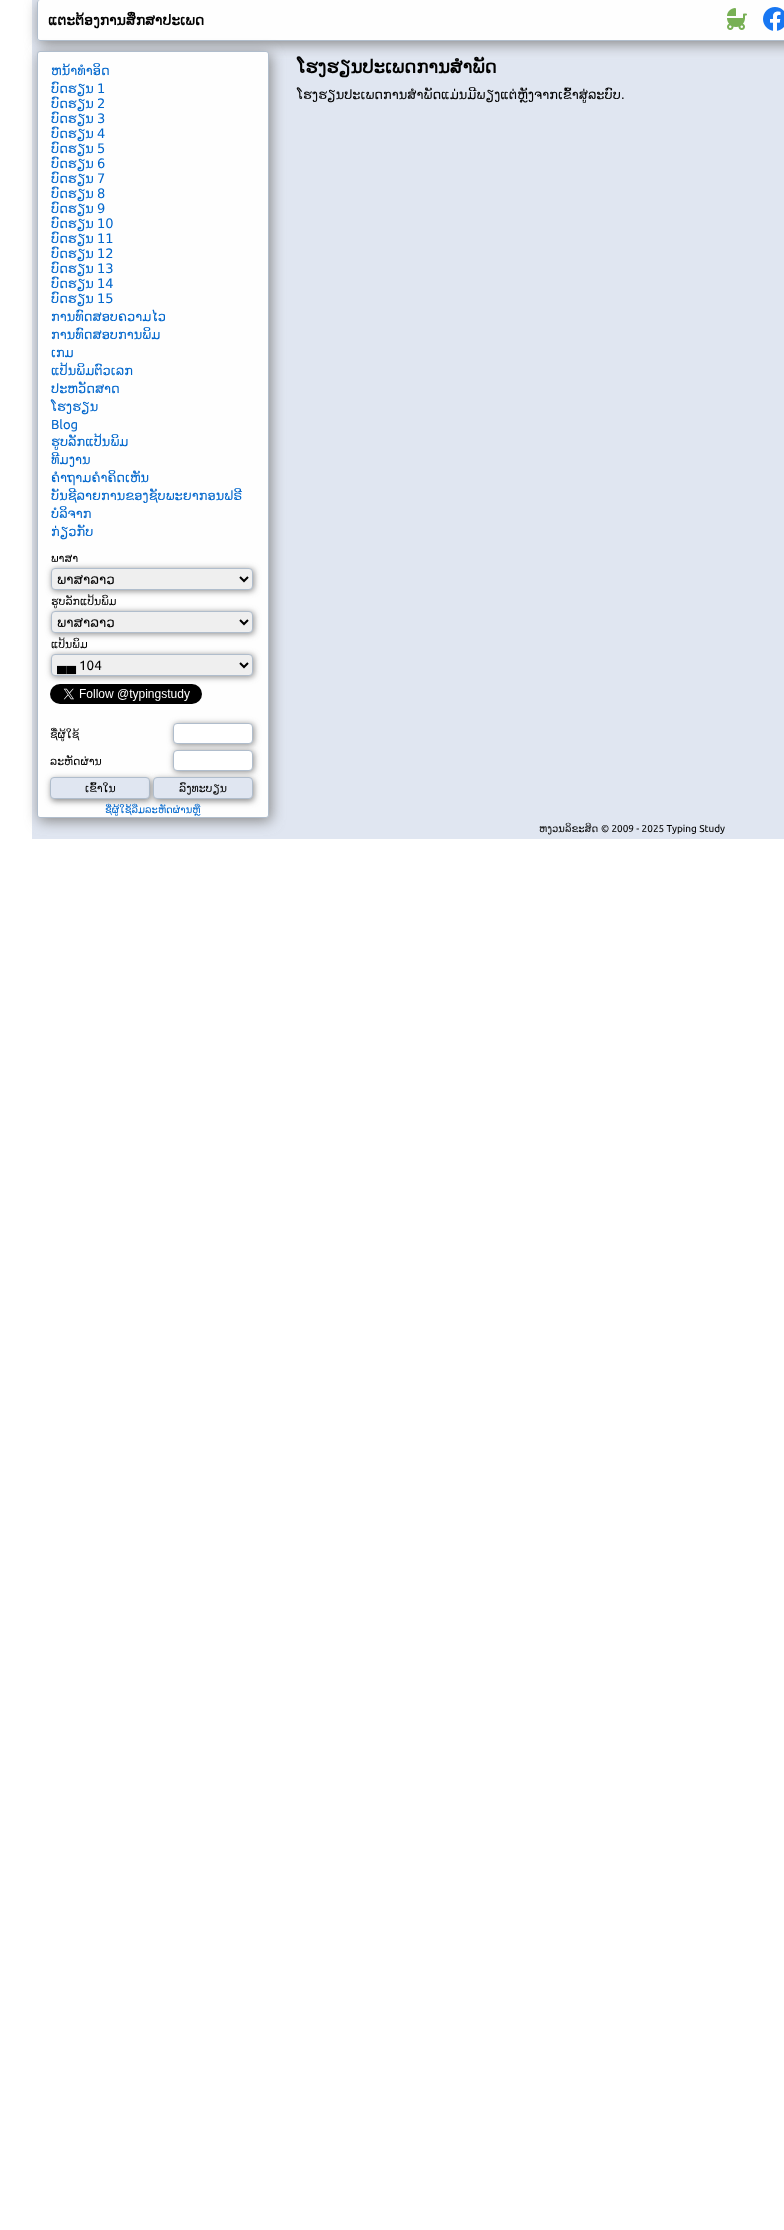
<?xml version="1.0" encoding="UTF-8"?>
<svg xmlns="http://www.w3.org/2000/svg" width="784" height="2230">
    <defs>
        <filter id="blur1" x="-50%" y="-200%" width="200%" height="500%"><feGaussianBlur stdDeviation="7"/></filter>
        <filter id="blur2" x="-50%" y="-200%" width="200%" height="500%"><feGaussianBlur stdDeviation="3"/></filter>
    </defs>
    <rect width="100%" height="100%" fill="#FFFFFF"/>
    <rect x="32" y="0" width="752" height="839" fill="#E0E6F1"/>
    <rect x="39" y="3" width="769" height="41" rx="3" fill="#888888" filter="url(#blur1)"/>
    <rect x="37" y="0" width="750" height="41" rx="3" fill="#FEFEFE"/>
    <path d="M 40 0 H 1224 C 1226 0 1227 1 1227 3 V 38 C 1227 40 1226 41 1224 41 H 40 C 38 41 37 40 37 38 V 3 C 37 1 38 0 40 0 Z M 40 0 H 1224 C 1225 0 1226 1 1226 3 V 38 C 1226 39 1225 40 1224 40 H 40 C 39 40 38 39 38 38 V 3 C 38 1 39 0 40 0 Z" fill="#B0BDCC" fill-rule="evenodd"/>
    <text x="48" y="25" font-family="DejaVu Sans" font-size="14" font-weight="700" fill="#000000">ແຕະຕ້ອງການສຶກສາປະເພດ</text>
    <image x="727" y="8" width="20" height="22" href="img_01.png"/>
    <image x="763" y="7" width="21" height="24" href="img_02.png"/>
    <rect x="39" y="54" width="232" height="767" rx="3" fill="#888888" filter="url(#blur1)"/>
    <rect x="37.5" y="51.5" width="231" height="766" rx="2.5" fill="#FEFEFE" stroke="#B0BDCC"/>
    <text font-family="DejaVu Sans" font-size="13" fill="#0066CC">
        <tspan x="51" y="75">ຫນ້າທໍາອິດ</tspan>
        <tspan x="51" y="93" word-spacing="-1">ບົດຮຽນ 1</tspan>
        <tspan x="51" y="108" word-spacing="-1">ບົດຮຽນ 2</tspan>
        <tspan x="51" y="123" word-spacing="-1">ບົດຮຽນ 3</tspan>
        <tspan x="51" y="138" word-spacing="-1">ບົດຮຽນ 4</tspan>
        <tspan x="51" y="153" word-spacing="-1">ບົດຮຽນ 5</tspan>
        <tspan x="51" y="168" word-spacing="-1">ບົດຮຽນ 6</tspan>
        <tspan x="51" y="183" word-spacing="-1">ບົດຮຽນ 7</tspan>
        <tspan x="51" y="198" word-spacing="-1">ບົດຮຽນ 8</tspan>
        <tspan x="51" y="213" word-spacing="-1">ບົດຮຽນ 9</tspan>
        <tspan x="51" y="228" word-spacing="-1">ບົດຮຽນ 10</tspan>
        <tspan x="51" y="243" word-spacing="-1">ບົດຮຽນ 11</tspan>
        <tspan x="51" y="258" word-spacing="-1">ບົດຮຽນ 12</tspan>
        <tspan x="51" y="273" word-spacing="-1">ບົດຮຽນ 13</tspan>
        <tspan x="51" y="288" word-spacing="-1">ບົດຮຽນ 14</tspan>
        <tspan x="51" y="303" word-spacing="-1">ບົດຮຽນ 15</tspan>
        <tspan x="51" y="321">ການທົດສອບຄວາມໄວ</tspan>
        <tspan x="51" y="339">ການທົດສອບການພິມ</tspan>
        <tspan x="51" y="357">ເກມ</tspan>
        <tspan x="51" y="375">ແປ້ນພິມຕົວເລກ</tspan>
        <tspan x="51" y="393">ປະຫວັດສາດ</tspan>
        <tspan x="51" y="411">ໂຮງຮຽນ</tspan>
    </text>
    <text x="51" y="429" font-family="Ubuntu" font-size="13" fill="#0066CC">Blog</text>
    <text font-family="DejaVu Sans" font-size="13" fill="#0066CC">
        <tspan x="51" y="446">ຮູບລັກແປ້ນພິມ</tspan>
        <tspan x="51" y="464">ທີມງານ</tspan>
        <tspan x="51" y="482">ຄໍາຖາມຄໍາຄິດເຫັນ</tspan>
        <tspan x="51" y="500">ບັນຊີລາຍການຂອງຊັບພະຍາກອນຟຣີ</tspan>
        <tspan x="51" y="518">ບໍລິຈາກ</tspan>
        <tspan x="51" y="536">ກ່ຽວກັບ</tspan>
    </text>
    <rect x="52" y="569" width="202" height="22" rx="4" fill="#888888" filter="url(#blur2)"/>
    <text x="51" y="562" font-family="DejaVu Sans" font-size="11" fill="#000000">ພາສາ</text>
    <rect x="51.5" y="568.5" width="201" height="21" rx="3.5" fill="#EFEFEF" stroke="#B0BDCC"/>
    <path d="M 240 577 L 244 581 L 248 577" fill="none" stroke="#000000" stroke-width="2"/>
    <text x="57" y="584" font-family="DejaVu Sans" font-size="13.5" fill="#000000">ພາສາລາວ</text>
    <rect x="52" y="612" width="202" height="22" rx="4" fill="#888888" filter="url(#blur2)"/>
    <text x="51" y="605" font-family="DejaVu Sans" font-size="11" fill="#000000">ຮູບລັກແປ້ນພິມ</text>
    <rect x="51.5" y="611.5" width="201" height="21" rx="3.5" fill="#EFEFEF" stroke="#B0BDCC"/>
    <path d="M 240 620 L 244 624 L 248 620" fill="none" stroke="#000000" stroke-width="2"/>
    <text x="57" y="627" font-family="DejaVu Sans" font-size="13.5" fill="#000000">ພາສາລາວ</text>
    <rect x="52" y="655" width="202" height="22" rx="4" fill="#888888" filter="url(#blur2)"/>
    <text x="51" y="648" font-family="DejaVu Sans" font-size="11" fill="#000000">ແປ້ນພິມ</text>
    <rect x="51.5" y="654.5" width="201" height="21" rx="3.5" fill="#EFEFEF" stroke="#B0BDCC"/>
    <path d="M 240 663 L 244 667 L 248 663" fill="none" stroke="#000000" stroke-width="2"/>
    <text x="57" y="670" font-family="Liberation Sans" font-size="13.5" fill="#000000">▄▄</text>
    <text x="79" y="670" font-family="Ubuntu" font-size="13.5" fill="#000000">104</text>
    <image x="50" y="684" width="152" height="20" href="img_03.png"/>
    <text x="50" y="738" font-family="DejaVu Sans" font-size="11" fill="#000000">ຊື່ຜູ້ໃຊ້</text>
    <rect x="174" y="724" width="80" height="21" rx="4" fill="#888888" filter="url(#blur2)"/>
    <rect x="173.5" y="723.5" width="79" height="20" rx="3.5" fill="#FFFFFF" stroke="#B0BDCC"/>
    <text x="50" y="765" font-family="DejaVu Sans" font-size="11" fill="#000000">ລະຫັດຜ່ານ</text>
    <rect x="174" y="751" width="80" height="21" rx="4" fill="#888888" filter="url(#blur2)"/>
    <rect x="173.5" y="750.5" width="79" height="20" rx="3.5" fill="#FFFFFF" stroke="#B0BDCC"/>
    <rect x="51" y="779" width="100" height="22" rx="4" fill="#888888" filter="url(#blur2)"/>
    <rect x="50.5" y="777.5" width="99" height="21" rx="3.5" fill="#E0E6F1" stroke="#B0BDCC"/>
    <text x="85" y="792" font-family="DejaVu Sans" font-size="11" fill="#000000">ເຂົ້າໃນ</text>
    <rect x="154" y="779" width="100" height="22" rx="4" fill="#888888" filter="url(#blur2)"/>
    <rect x="153.5" y="777.5" width="99" height="21" rx="3.5" fill="#E0E6F1" stroke="#B0BDCC"/>
    <text x="179" y="792" font-family="DejaVu Sans" font-size="11" fill="#000000">ລົງທະບຽນ</text>
    <text x="105" y="813" font-family="DejaVu Sans" font-size="10" fill="#0066CC">ຊື່ຜູ້ໃຊ້ລືມລະຫັດຜ່ານຫຼື</text>
    <text x="297" y="73" font-family="DejaVu Sans" font-size="18" font-weight="700" fill="#000000">ໂຮງຮຽນປະເພດການສໍາພັດ</text>
    <text x="297" y="99" font-family="DejaVu Sans" font-size="13" fill="#000000">ໂຮງຮຽນປະເພດການສໍາພັດແມ່ນມີພຽງແຕ່ຫຼັງຈາກເຂົ້າສູ່ລະບົບ.</text>
    <text x="539" y="832" font-family="DejaVu Sans" font-size="10" fill="#000000">ຫງວນລິຂະສິດ</text>
    <text x="601" y="832" font-family="Ubuntu" font-size="10" fill="#000000">© 2009 - 2025 Typing Study</text>
</svg>
